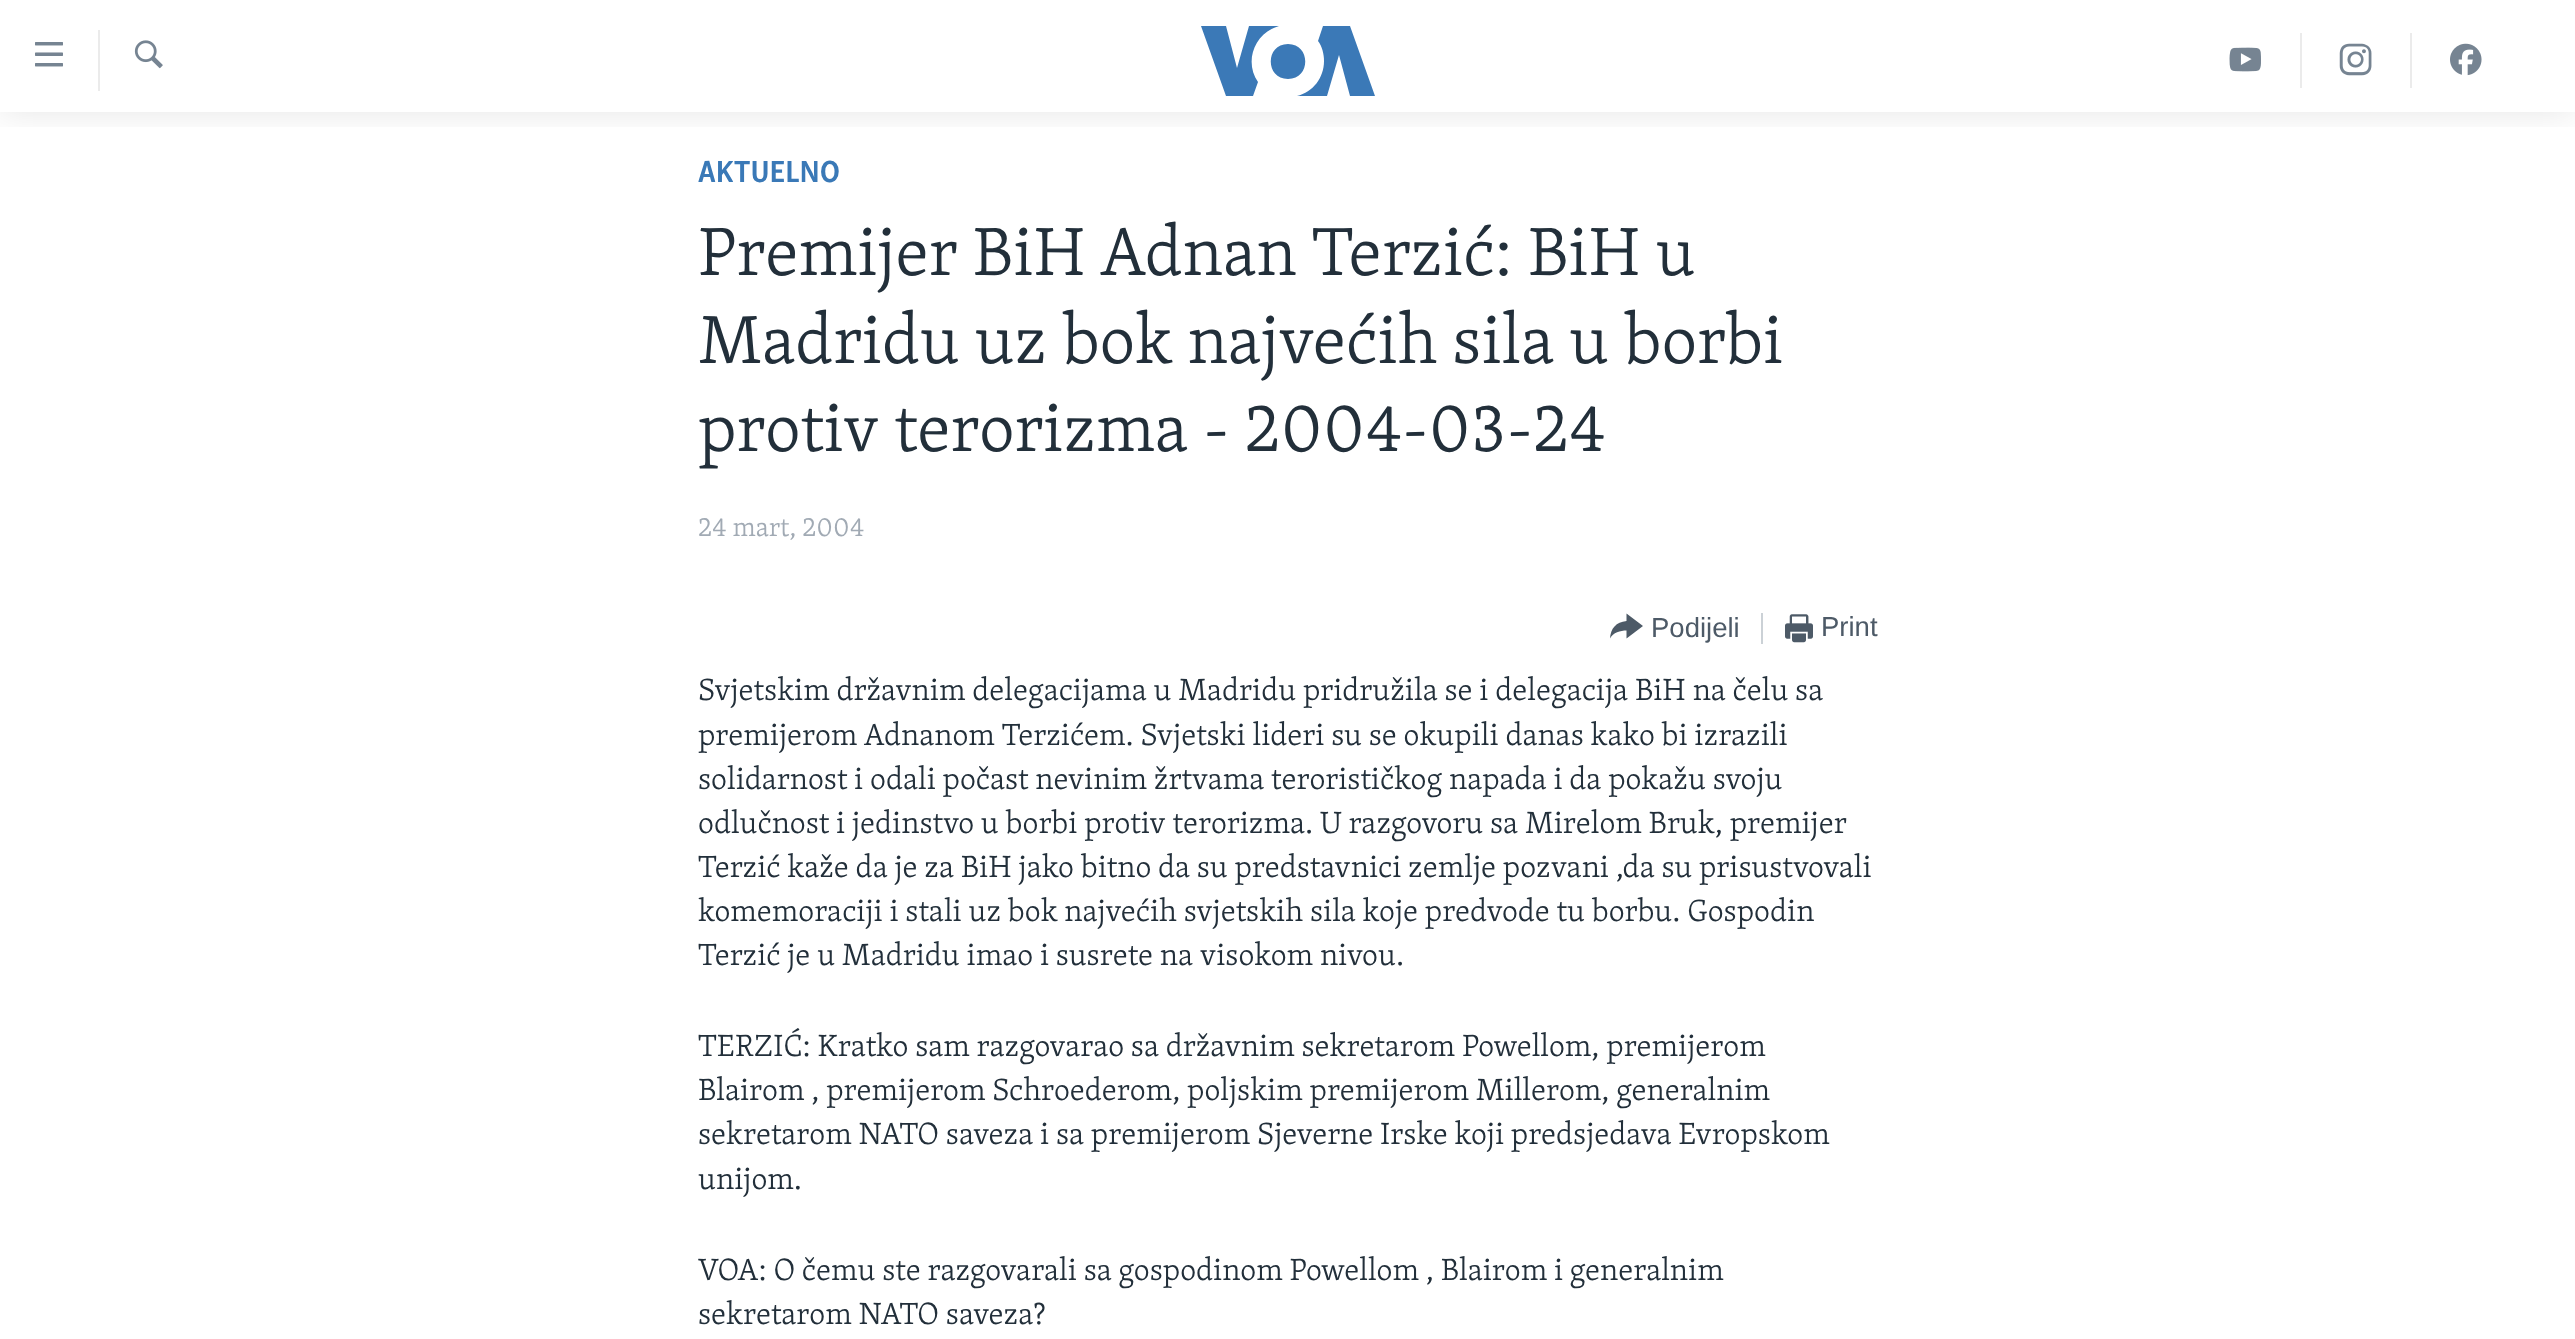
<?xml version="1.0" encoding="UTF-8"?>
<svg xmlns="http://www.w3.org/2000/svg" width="2575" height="1339">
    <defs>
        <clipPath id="clip1"><rect x="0" y="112" width="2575" height="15"/></clipPath>
        <filter id="blur1" x="-50%" y="-200%" width="200%" height="500%"><feGaussianBlur stdDeviation="17.5"/></filter>
    </defs>
    <rect width="100%" height="100%" fill="#FFFFFF"/>
    <g clip-path="url(#clip1)">
        <rect x="0" y="0" width="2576" height="112" fill="#000000" fill-opacity="0.1" filter="url(#blur1)"/>
    </g>
    <image x="35" y="42" width="28" height="25" href="img_01.png"/>
    <rect x="98" y="30" width="2" height="61" fill="#EBEBEB"/>
    <image x="134" y="40" width="29" height="29" href="img_02.png"/>
    <path d="M 1258 82 L 1253 96 H 1226 L 1201 26 H 1226 L 1237 68 L 1249 26 H 1279 C 1254 33 1244 62 1258 82 Z M 1288 44 C 1265 44 1265 79 1288 79 C 1311 79 1311 44 1288 44 Z M 1324 61 C 1324 78 1313 92 1297 96 H 1327 L 1339 55 L 1350 96 H 1375 L 1350 26 H 1323 L 1318 41 C 1322 46 1324 54 1324 61 Z" fill="#3B79B7"/>
    <rect x="2300" y="33" width="2" height="55" fill="#EBEBEB"/>
    <image x="2229" y="47" width="32" height="25" href="img_03.png"/>
    <rect x="2410" y="33" width="2" height="55" fill="#EBEBEB"/>
    <image x="2339" y="43" width="33" height="33" href="img_04.png"/>
    <image x="2450" y="43" width="32" height="33" href="img_05.png"/>
    <text x="698" y="182" font-family="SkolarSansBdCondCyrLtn" font-size="31.5" font-weight="700" fill="#3A79B7">AKTUELNO</text>
    <text font-family="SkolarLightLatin" font-size="69.9" font-weight="300" fill="#222F3A">
        <tspan x="698" y="275">Premijer BiH Adnan Terzić: BiH u</tspan>
        <tspan x="698" y="363">Madridu uz bok najvećih sila u borbi</tspan>
        <tspan x="698" y="451">protiv terorizma - 2004-03-24</tspan>
    </text>
    <text x="698" y="536" font-family="SkolarLightLatin" font-size="27.5" font-weight="300" fill="#A1AAB4">24 mart, 2004</text>
    <path d="M 1610 638.5 C 1610.5 628.5 1616 622 1626.5 621 V 613.5 L 1643 626 L 1626.5 638.5 V 630.5 C 1620.5 630.5 1613 632.5 1610 638.5 Z" fill="#4D5A67"/>
    <text x="1651" y="637" font-family="Liberation Sans" font-size="27.5" fill="#4D5A67">Podijeli</text>
    <rect x="1761" y="613" width="2" height="31" fill="#CBD1D6"/>
    <image x="1785" y="614" width="28" height="29" href="img_06.png"/>
    <text x="1821" y="636" font-family="Liberation Sans" font-size="27.5" fill="#4D5A67">Print</text>
    <text font-family="SkolarLightLatin" font-size="31.5" font-weight="300" fill="#222F3A">
        <tspan x="698" y="700">Svjetskim državnim delegacijama u Madridu pridružila se i delegacija BiH na čelu sa</tspan>
        <tspan x="698" y="745">premijerom Adnanom Terzićem. Svjetski lideri su se okupili danas kako bi izrazili</tspan>
        <tspan x="698" y="789">solidarnost i odali počast nevinim žrtvama terorističkog napada i da pokažu svoju</tspan>
        <tspan x="698" y="833">odlučnost i jedinstvo u borbi protiv terorizma. U razgovoru sa Mirelom Bruk, premijer</tspan>
        <tspan x="698" y="877">Terzić kaže da je za BiH jako bitno da su predstavnici zemlje pozvani ,da su prisustvovali</tspan>
        <tspan x="698" y="921">komemoraciji i stali uz bok najvećih svjetskih sila koje predvode tu borbu. Gospodin</tspan>
        <tspan x="698" y="965">Terzić je u Madridu imao i susrete na visokom nivou.</tspan>
    </text>
    <text font-family="SkolarLightLatin" font-size="31.5" font-weight="300" fill="#222F3A">
        <tspan x="698" y="1056">TERZIĆ: Kratko sam razgovarao sa državnim sekretarom Powellom, premijerom</tspan>
        <tspan x="698" y="1100">Blairom , premijerom Schroederom, poljskim premijerom Millerom, generalnim</tspan>
        <tspan x="698" y="1144">sekretarom NATO saveza i sa premijerom Sjeverne Irske koji predsjedava Evropskom</tspan>
        <tspan x="698" y="1189">unijom.</tspan>
    </text>
    <text font-family="SkolarLightLatin" font-size="31.5" font-weight="300" fill="#222F3A">
        <tspan x="698" y="1280">VOA: O čemu ste razgovarali sa gospodinom Powellom , Blairom i generalnim</tspan>
        <tspan x="698" y="1324">sekretarom NATO saveza?</tspan>
    </text>
</svg>
